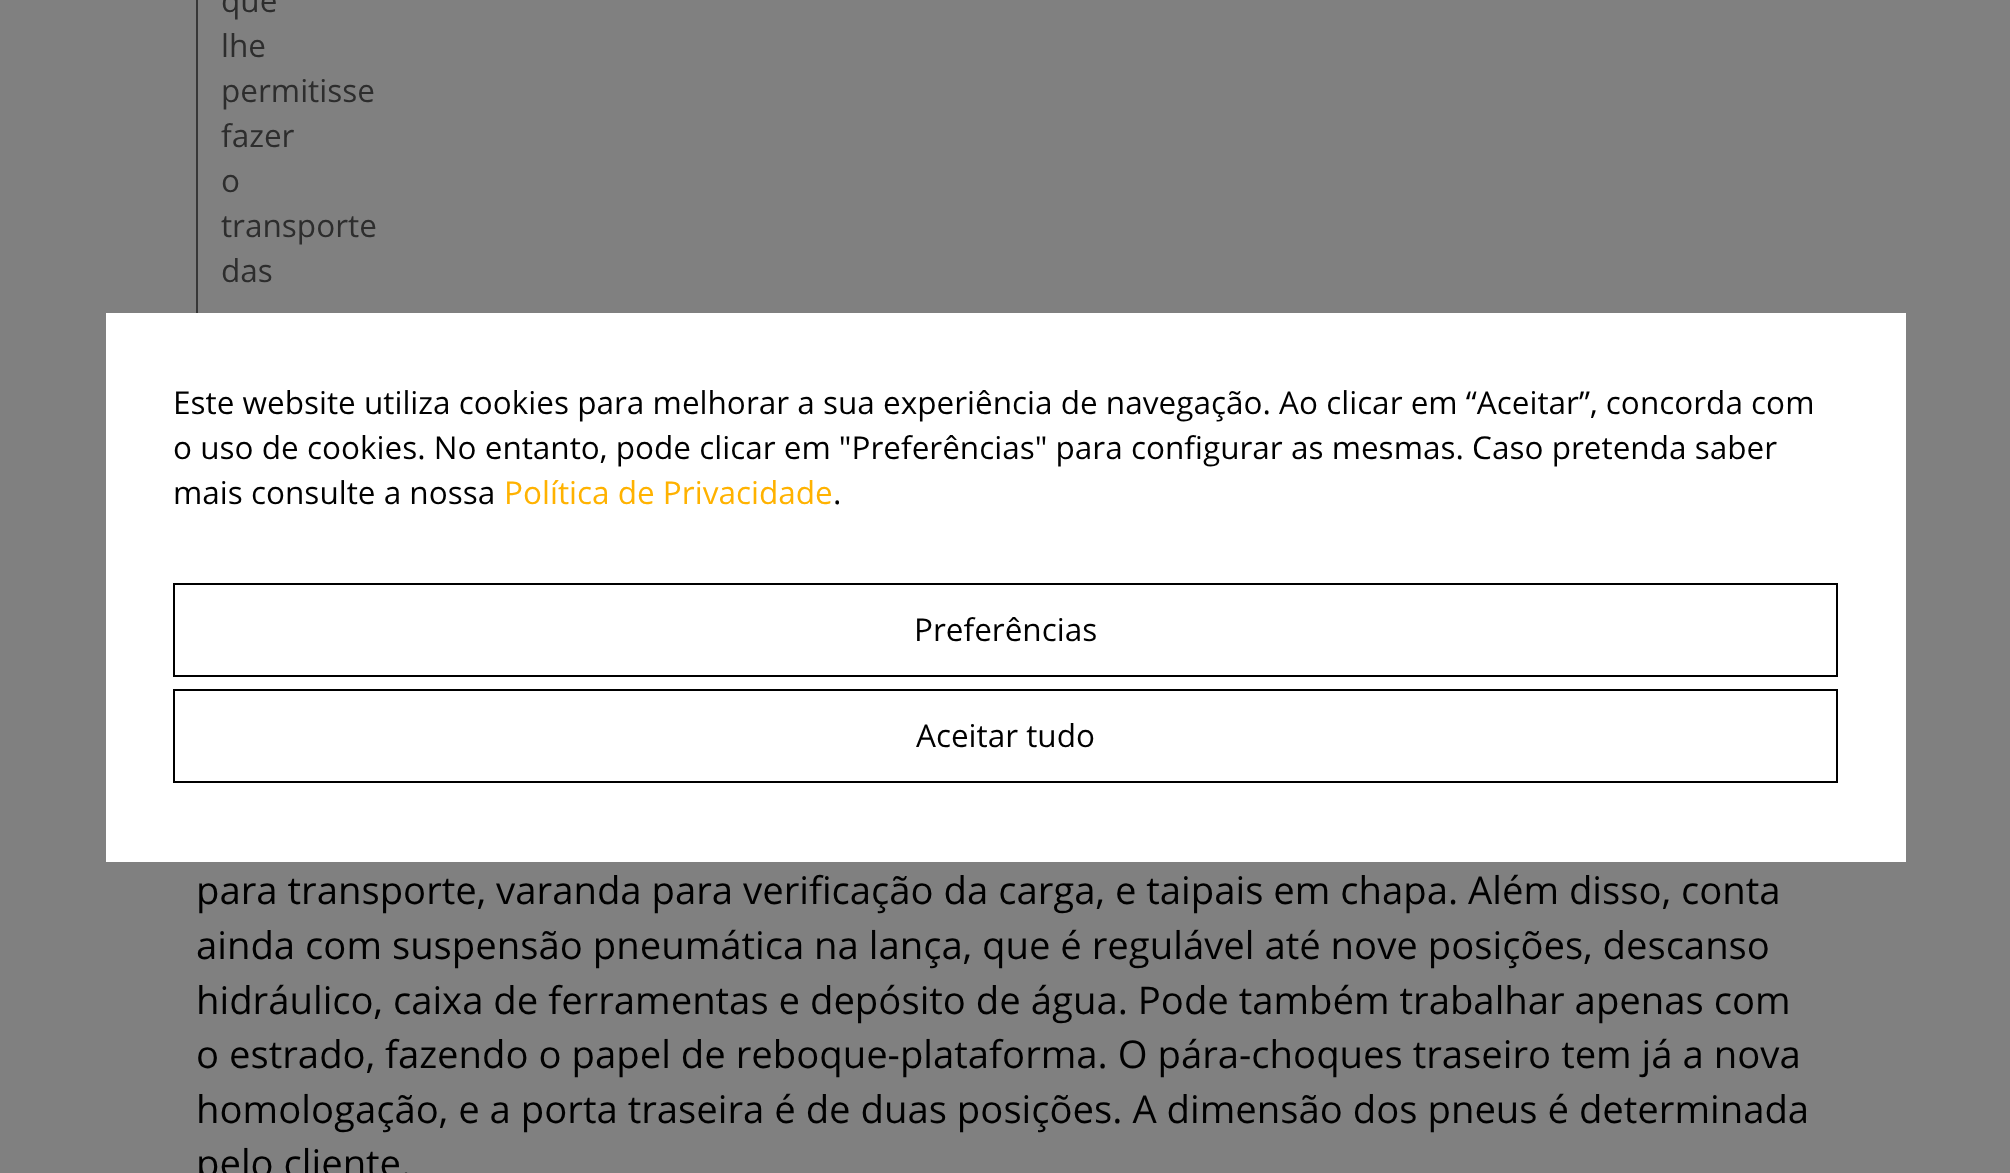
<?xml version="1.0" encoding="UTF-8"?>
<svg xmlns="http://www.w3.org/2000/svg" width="2010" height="1173">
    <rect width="100%" height="100%" fill="#808080"/>
    <rect x="196" y="0" width="2" height="313" fill="#373737"/>
    <text font-family="Open Sans" font-size="31.5" fill="#2D2D2D">
        <tspan x="221" y="12">que</tspan>
        <tspan x="221" y="57">lhe</tspan>
        <tspan x="221" y="102">permitisse</tspan>
        <tspan x="221" y="147">fazer</tspan>
        <tspan x="221" y="192">o</tspan>
        <tspan x="221" y="237">transporte</tspan>
        <tspan x="221" y="282">das</tspan>
    </text>
    <text font-family="Open Sans" font-size="38.25" fill="#000000">
        <tspan x="196" y="904">para transporte, varanda para verificação da carga, e taipais em chapa. Além disso, conta</tspan>
        <tspan x="196" y="959">ainda com suspensão pneumática na lança, que é regulável até nove posições, descanso</tspan>
        <tspan x="196" y="1014">hidráulico, caixa de ferramentas e depósito de água. Pode também trabalhar apenas com</tspan>
        <tspan x="196" y="1068">o estrado, fazendo o papel de reboque-plataforma. O pára-choques traseiro tem já a nova</tspan>
        <tspan x="196" y="1123">homologação, e a porta traseira é de duas posições. A dimensão dos pneus é determinada</tspan>
        <tspan x="196" y="1177">pelo cliente.</tspan>
    </text>
    <rect x="106" y="313" width="1800" height="549" fill="#FFFFFF"/>
    <text font-family="Open Sans" font-size="31.5" fill="#000000">
        <tspan x="173" y="414">Este website utiliza cookies para melhorar a sua experiência de navegação. Ao clicar em “Aceitar”, concorda com</tspan>
        <tspan x="173" y="459">o uso de cookies. No entanto, pode clicar em "Preferências" para configurar as mesmas. Caso pretenda saber</tspan>
        <tspan x="173" y="504">mais consulte a nossa</tspan>
    </text>
    <text x="504" y="504" font-family="Open Sans" font-size="31.5" fill="#FFB200">Política de Privacidade</text>
    <text x="833" y="504" font-family="Open Sans" font-size="31.5" fill="#000000">.</text>
    <rect x="174" y="584" width="1663" height="92" fill="none" stroke="#000000" stroke-width="2"/>
    <text x="914" y="641" font-family="Open Sans" font-size="31.5" fill="#000000">Preferências</text>
    <rect x="174" y="690" width="1663" height="92" fill="none" stroke="#000000" stroke-width="2"/>
    <text x="916" y="747" font-family="Open Sans" font-size="31.5" fill="#000000">Aceitar tudo</text>
</svg>
